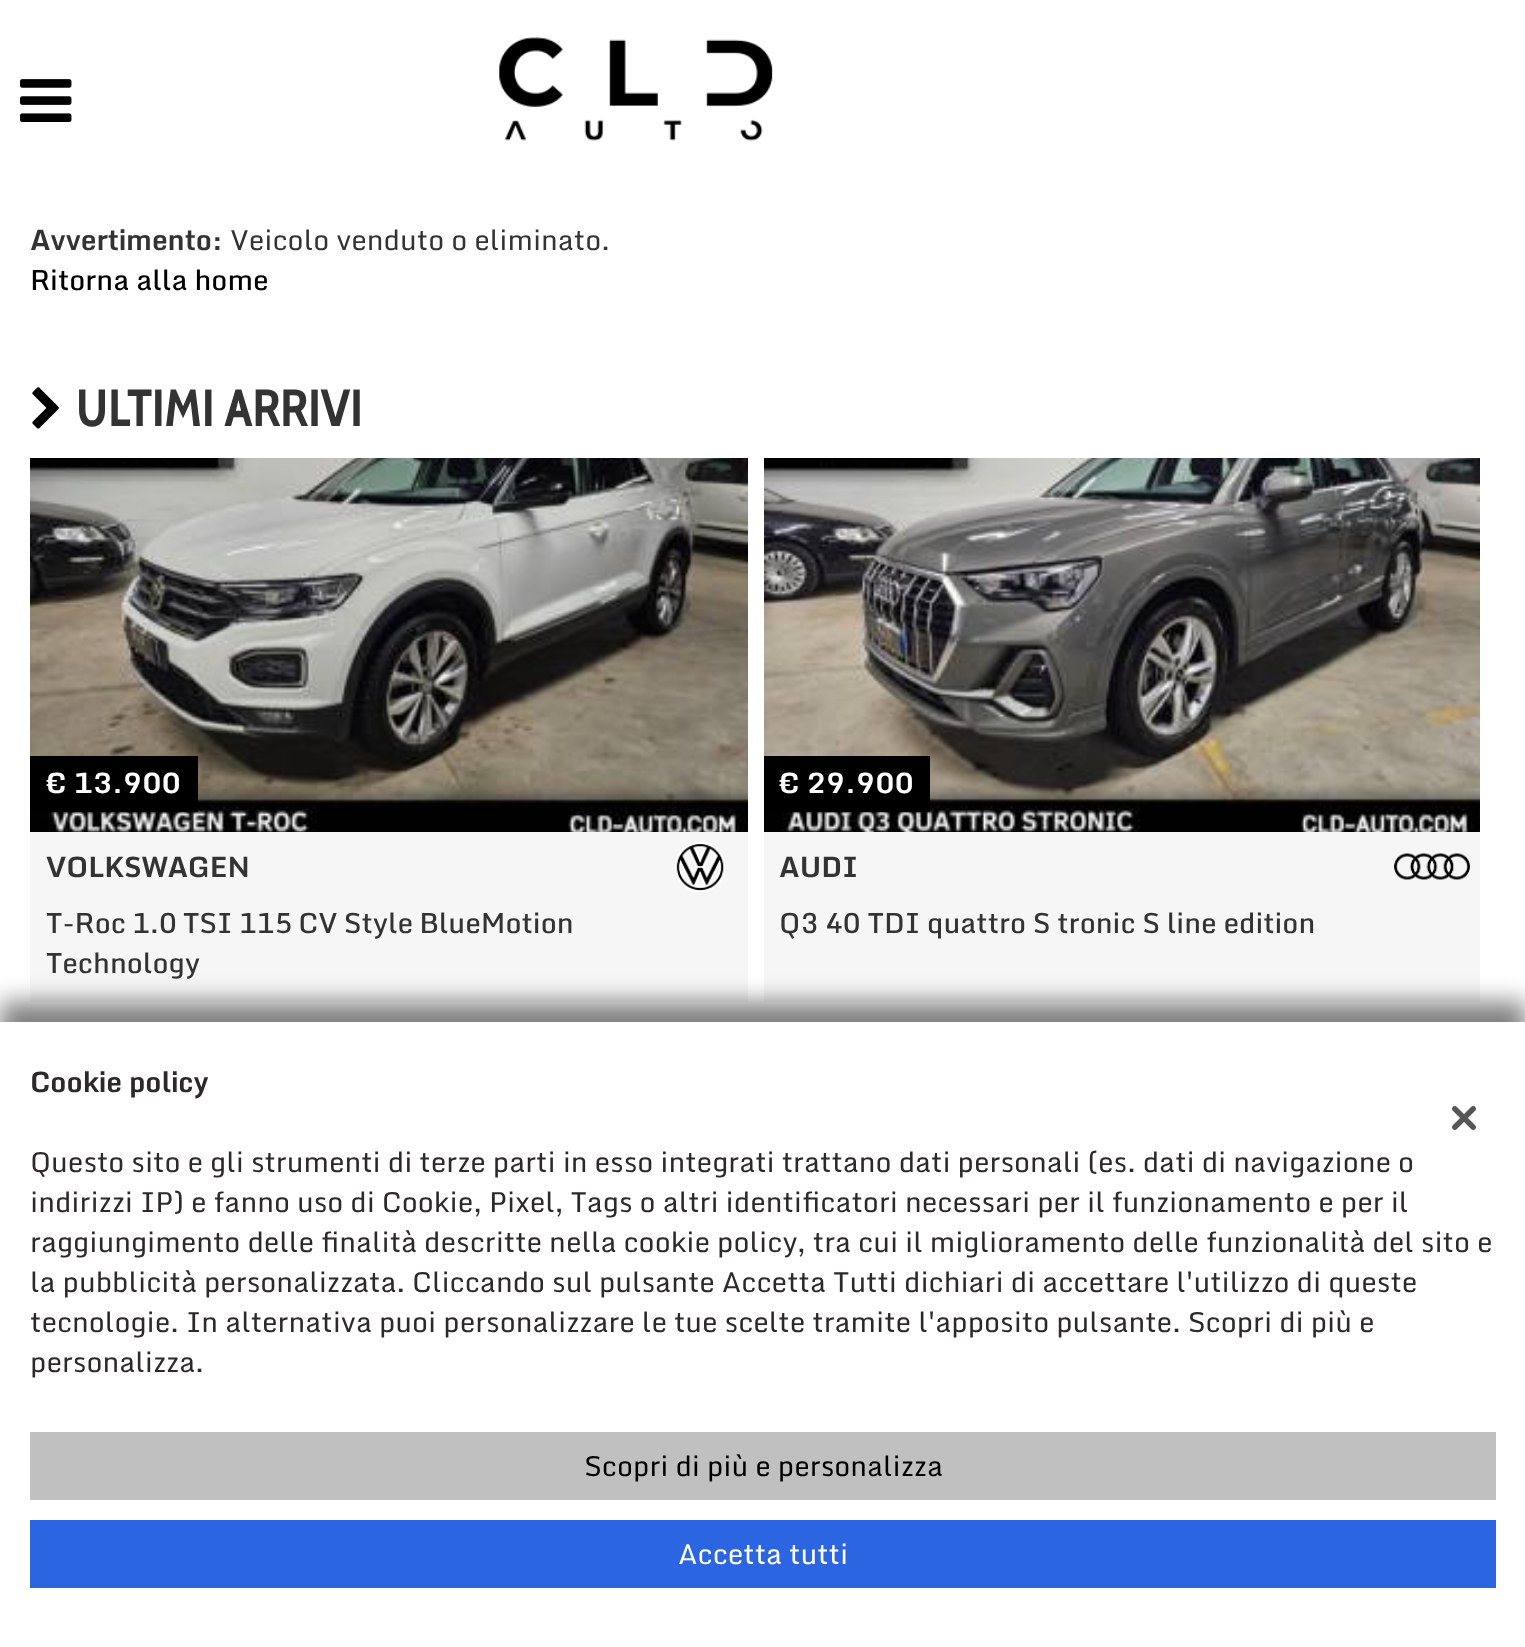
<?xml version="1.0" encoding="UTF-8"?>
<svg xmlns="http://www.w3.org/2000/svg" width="1525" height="1647">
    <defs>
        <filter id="blur1" x="-50%" y="-200%" width="200%" height="500%"><feGaussianBlur stdDeviation="12"/></filter>
    </defs>
    <rect width="100%" height="100%" fill="#FFFFFF"/>
    <image x="20" y="79" width="52" height="43" href="img_01.png"/>
    <image x="499" y="37" width="274" height="104" href="img_02.png"/>
    <text x="30" y="250" font-family="Monda" font-size="28" font-weight="700" fill="#333333">Avvertimento:</text>
    <text x="230" y="250" font-family="Monda" font-size="28" fill="#333333">Veicolo venduto o eliminato.</text>
    <text x="30" y="290" font-family="Monda" font-size="28" font-weight="500" fill="#000000">Ritorna alla home</text>
    <image x="32" y="387" width="27" height="42" href="img_03.png"/>
    <text x="76" y="426" font-family="Cabin Condensed" font-size="52" font-weight="700" fill="#333333">ULTIMI ARRIVI</text>
    <rect x="30" y="832" width="718" height="170" fill="#F6F6F6"/>
    <image x="30" y="458" width="718" height="374" href="img_04.png"/>
    <rect x="30" y="756" width="168" height="56" fill="#000000"/>
    <text x="46" y="793" font-family="Monda" font-size="28" font-weight="700" fill="#FFFFFF">€ 13.900</text>
    <text x="46" y="877" font-family="Monda" font-size="28" font-weight="700" fill="#333333">VOLKSWAGEN</text>
    <image x="675" y="842" width="50" height="50" href="img_05.png"/>
    <text font-family="Monda" font-size="28" font-weight="500" fill="#333333">
        <tspan x="46" y="933" word-spacing="-1">T-Roc 1.0 TSI 115 CV Style BlueMotion</tspan>
        <tspan x="46" y="973">Technology</tspan>
    </text>
    <rect x="764" y="832" width="716" height="170" fill="#F6F6F6"/>
    <image x="764" y="458" width="716" height="374" href="img_06.png"/>
    <rect x="764" y="756" width="166" height="56" fill="#000000"/>
    <text x="779" y="793" font-family="Monda" font-size="28" font-weight="700" fill="#FFFFFF">€ 29.900</text>
    <text x="779" y="877" font-family="Monda" font-size="28" font-weight="700" fill="#333333">AUDI</text>
    <image x="1394" y="853" width="76" height="27" href="img_07.png"/>
    <text x="779" y="933" word-spacing="-0.25" font-family="Monda" font-size="28" font-weight="500" fill="#333333">Q3 40 TDI quattro S tronic S line edition</text>
    <rect x="0" y="1002" width="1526" height="626" fill="#000000" fill-opacity="0.5" filter="url(#blur1)"/>
    <rect x="0" y="1022" width="1525" height="625" fill="#FFFFFF"/>
    <text x="30" y="1092" font-family="Monda" font-size="28" font-weight="700" fill="#2B2929">Cookie policy</text>
    <text font-family="Monda" font-size="28" fill="#2B2929">
        <tspan x="30" y="1172">Questo sito e gli strumenti di terze parti in esso integrati trattano dati personali (es. dati di navigazione o</tspan>
        <tspan x="30" y="1212">indirizzi IP) e fanno uso di Cookie, Pixel, Tags o altri identificatori necessari per il funzionamento e per il</tspan>
        <tspan x="30" y="1252">raggiungimento delle finalità descritte nella cookie policy, tra cui il miglioramento delle funzionalità del sito e</tspan>
        <tspan x="30" y="1292">la pubblicità personalizzata. Cliccando sul pulsante Accetta Tutti dichiari di accettare l'utilizzo di queste</tspan>
        <tspan x="30" y="1332">tecnologie. In alternativa puoi personalizzare le tue scelte tramite l'apposito pulsante. Scopri di più e</tspan>
        <tspan x="30" y="1372">personalizza.</tspan>
    </text>
    <rect x="30" y="1432" width="1466" height="68" fill="#C0C0C0"/>
    <text x="584" y="1476" font-family="Monda" font-size="28" fill="#000000">Scopri di più e personalizza</text>
    <rect x="30" y="1520" width="1466" height="68" fill="#2C65E1"/>
    <text x="678" y="1564" font-family="Monda" font-size="28" fill="#FFFFFF">Accetta tutti</text>
    <image x="1452" y="1106" width="24" height="24" href="img_08.png"/>
</svg>
